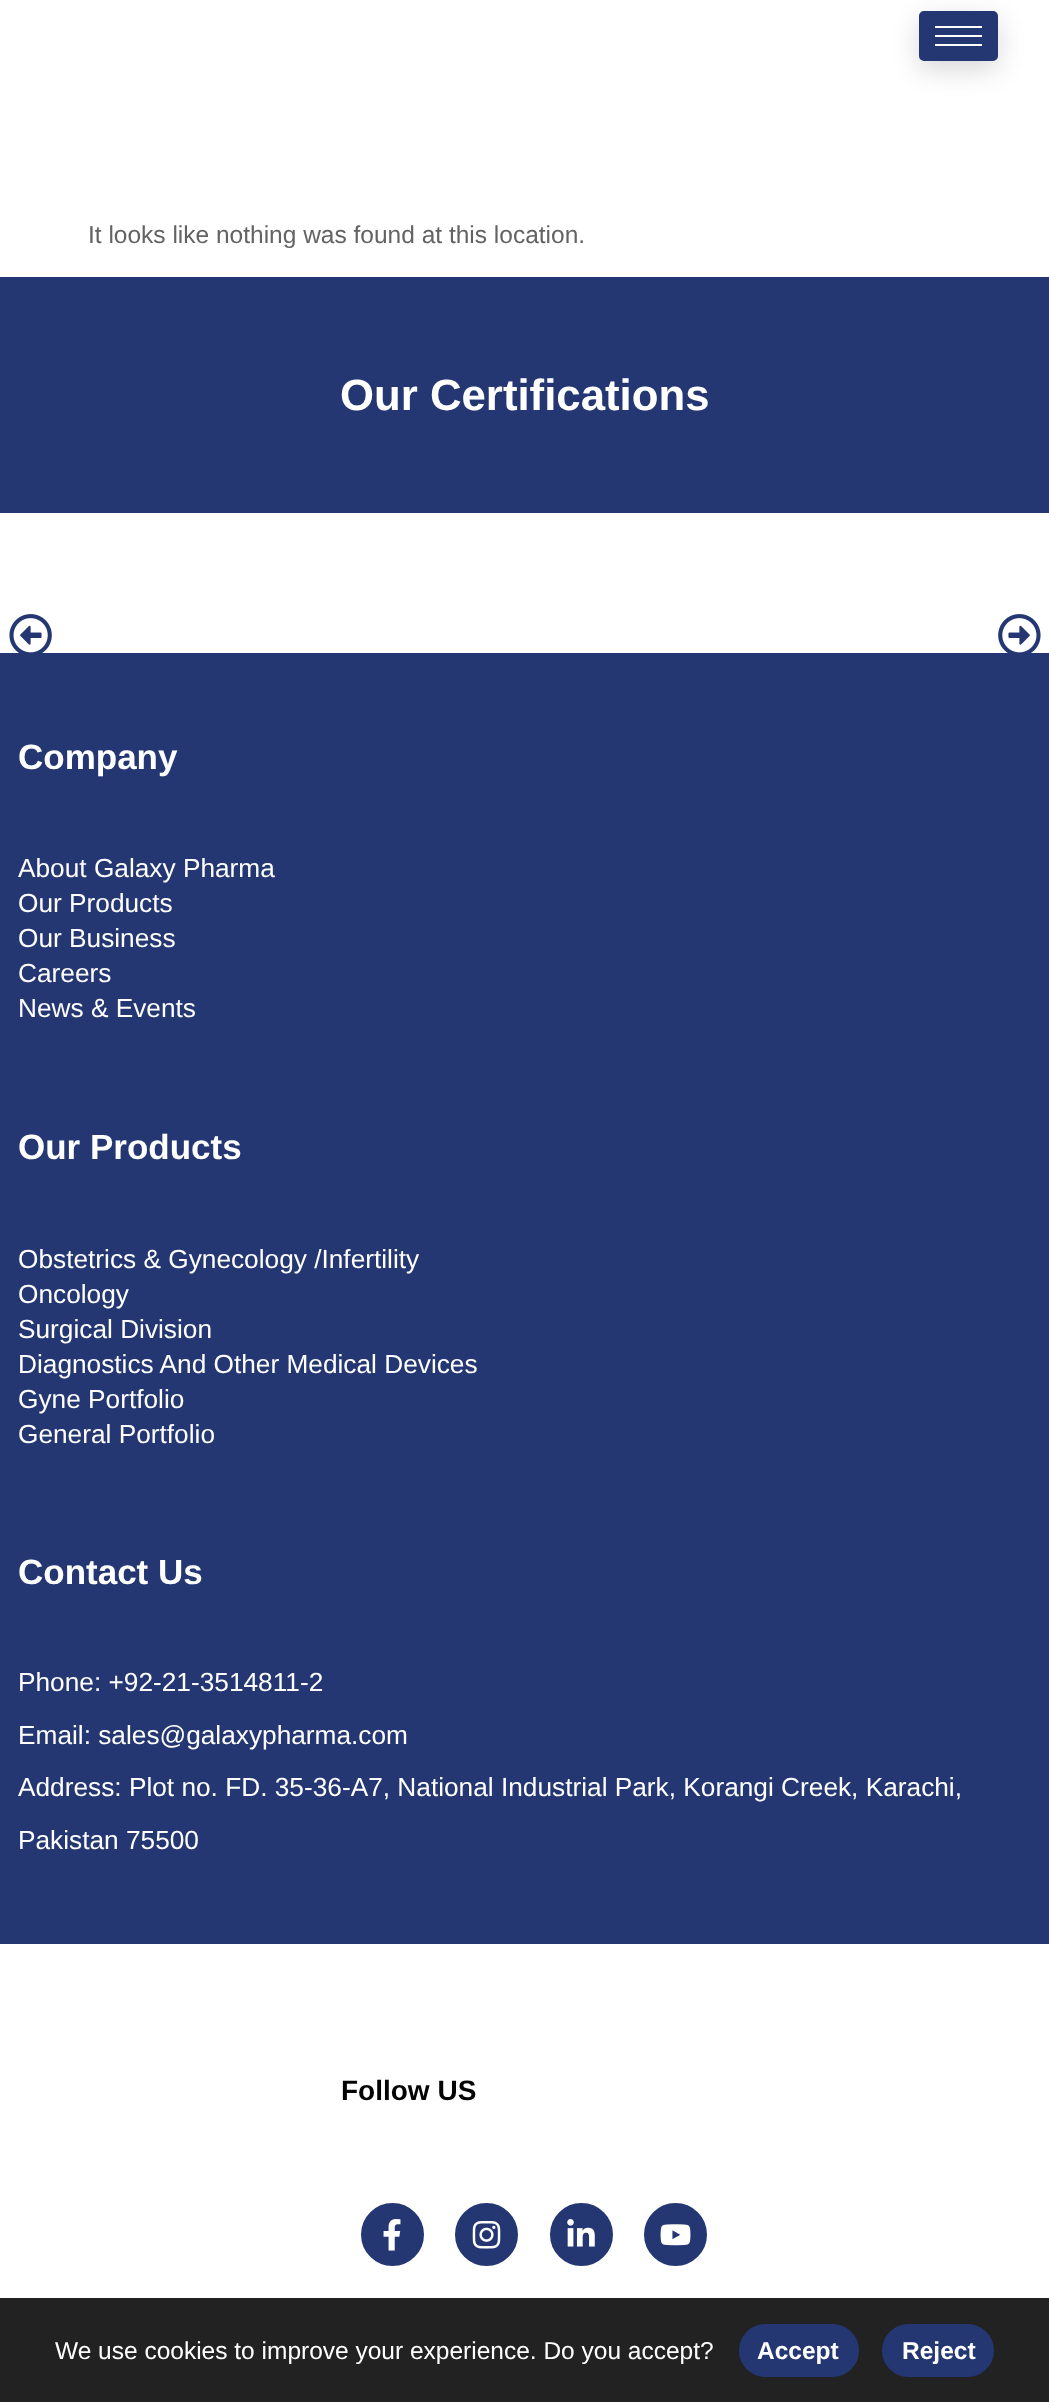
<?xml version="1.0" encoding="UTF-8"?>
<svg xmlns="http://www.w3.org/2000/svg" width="1049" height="2402">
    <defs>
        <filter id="blur1" x="-50%" y="-200%" width="200%" height="500%"><feGaussianBlur stdDeviation="13"/></filter>
    </defs>
    <rect width="100%" height="100%" fill="#FFFFFF"/>
    <rect x="919" y="19" width="79" height="51" rx="5" fill="#000000" fill-opacity="0.15" filter="url(#blur1)"/>
    <rect x="920" y="12" width="77" height="48" rx="4" fill="#243772" stroke="#243772" stroke-width="2"/>
    <rect x="935" y="26" width="47" height="2" fill="#FFFFFF"/>
    <rect x="935" y="35" width="47" height="2" fill="#FFFFFF"/>
    <rect x="935" y="44" width="47" height="2" fill="#FFFFFF"/>
    <text x="88" y="243" font-family="Liberation Sans" font-size="24.5" fill="#636363">It looks like nothing was found at this location.</text>
    <rect x="0" y="277" width="1049" height="236" fill="#243772"/>
    <text x="340" y="410" font-family="Liberation Sans" font-size="43.75" font-weight="700" fill="#FFFFFF">Our Certifications</text>
    <image x="9" y="614" width="43" height="39" href="img_01.png"/>
    <image x="998" y="614" width="43" height="39" href="img_02.png"/>
    <rect x="0" y="653" width="1049" height="1291" fill="#243772"/>
    <text x="18" y="769" font-family="Liberation Sans" font-size="35" font-weight="700" fill="#FFFFFF">Company</text>
    <text font-family="Liberation Sans" font-size="26.25" fill="#FFFFFF">
        <tspan x="18" y="877">About Galaxy Pharma</tspan>
        <tspan x="18" y="912">Our Products</tspan>
        <tspan x="18" y="947">Our Business</tspan>
        <tspan x="18" y="982">Careers</tspan>
        <tspan x="18" y="1017">News &amp; Events</tspan>
    </text>
    <text x="18" y="1159" font-family="Liberation Sans" font-size="35" font-weight="700" fill="#FFFFFF">Our Products</text>
    <text font-family="Liberation Sans" font-size="26.25" fill="#FFFFFF">
        <tspan x="18" y="1268">Obstetrics &amp; Gynecology /Infertility</tspan>
        <tspan x="18" y="1303">Oncology</tspan>
        <tspan x="18" y="1338">Surgical Division</tspan>
        <tspan x="18" y="1373">Diagnostics And Other Medical Devices</tspan>
        <tspan x="18" y="1408">Gyne Portfolio</tspan>
        <tspan x="18" y="1443">General Portfolio</tspan>
    </text>
    <text x="18" y="1584" font-family="Liberation Sans" font-size="35" font-weight="700" fill="#FFFFFF">Contact Us</text>
    <text x="18" y="1691" font-family="Liberation Sans" font-size="26.25" fill="#FFFFFF">Phone: +92-21-3514811-2</text>
    <text font-family="Liberation Sans" font-size="26.25" fill="#FFFFFF">
        <tspan x="18" y="1744">Email: sales@galaxypharma.com</tspan>
        <tspan x="18" y="1796">Address: Plot no. FD. 35-36-A7, National Industrial Park, Korangi Creek, Karachi,</tspan>
    </text>
    <text x="18" y="1849" font-family="Liberation Sans" font-size="26.25" fill="#FFFFFF">Pakistan 75500</text>
    <text x="341" y="2100" font-family="Liberation Sans" font-size="28" font-weight="700" fill="#040404">Follow US</text>
    <circle cx="392.5" cy="2234.5" r="29.5" fill="#243772" stroke="#243772" stroke-width="4"/>
    <image x="383" y="2219" width="18" height="32" href="img_03.png"/>
    <circle cx="486.5" cy="2234.5" r="29.5" fill="#243772" stroke="#243772" stroke-width="4"/>
    <image x="472" y="2220" width="29" height="29" href="img_04.png"/>
    <circle cx="581.5" cy="2234.5" r="29.5" fill="#243772" stroke="#243772" stroke-width="4"/>
    <image x="567" y="2219" width="28" height="28" href="img_05.png"/>
    <circle cx="675.5" cy="2234.5" r="29.5" fill="#243772" stroke="#243772" stroke-width="4"/>
    <image x="660" y="2224" width="31" height="22" href="img_06.png"/>
    <rect x="0" y="2298" width="1049" height="104" fill="#222222"/>
    <text x="55" y="2359" font-family="Liberation Sans" font-size="24.5" fill="#FFFFFF">We use cookies to improve your experience. Do you accept?</text>
    <rect x="740" y="2325" width="118" height="51" rx="25.5" fill="#243772" stroke="#243772" stroke-width="2"/>
    <text x="757" y="2359" font-family="Liberation Sans" font-size="24.5" font-weight="700" fill="#FFFFFF">Accept</text>
    <rect x="883" y="2325" width="110" height="51" rx="25.5" fill="#243772" stroke="#243772" stroke-width="2"/>
    <text x="902" y="2359" font-family="Liberation Sans" font-size="24.5" font-weight="700" fill="#FFFFFF">Reject</text>
</svg>
